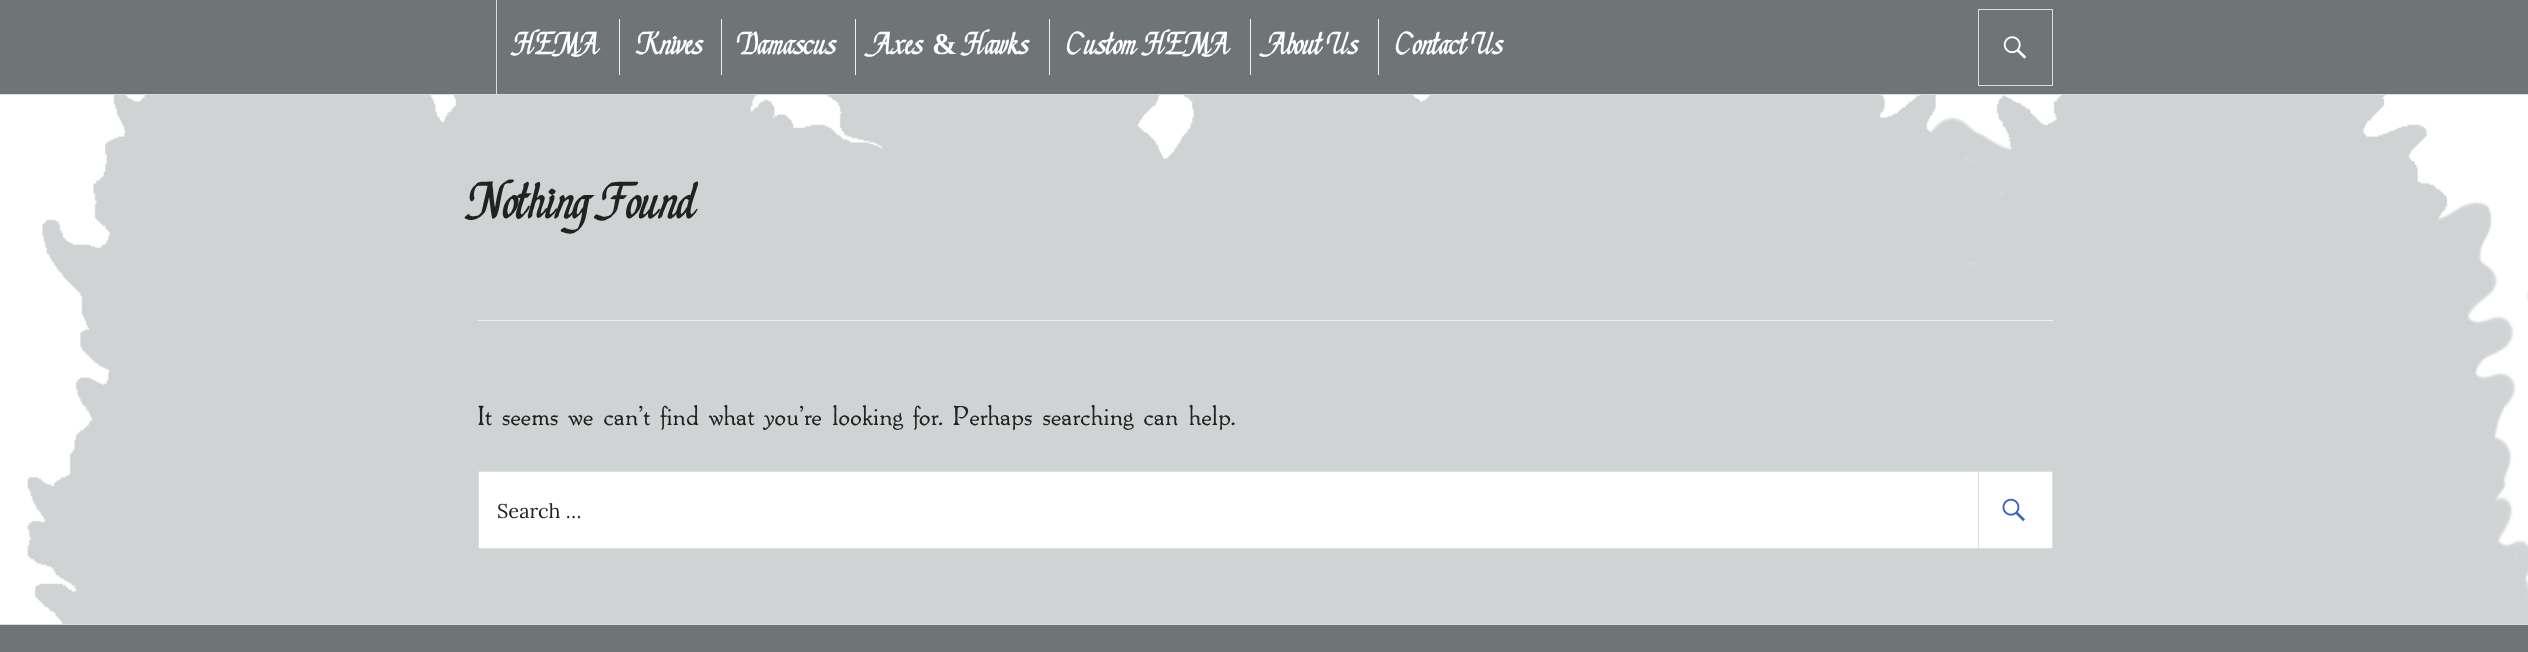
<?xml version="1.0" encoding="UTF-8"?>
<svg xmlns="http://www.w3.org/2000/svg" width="2528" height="652">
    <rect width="100%" height="100%" fill="#FFFFFF"/>
    <image x="27" y="95" width="2501" height="529" href="img_01.png"/>
    <rect x="0" y="0" width="2528" height="94" fill="#6F7477"/>
    <rect x="0" y="94" width="2528" height="1" fill="#DDDDDD"/>
    <rect x="496" y="0" width="1" height="94" fill="#DDDDDD"/>
    <text x="516" y="54" font-family="'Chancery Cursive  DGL'" font-size="30" font-weight="700" font-style="italic" fill="#FFFFFF">HEMA</text>
    <rect x="619" y="19" width="1" height="56" fill="#EEEEEE"/>
    <text x="639" y="54" font-family="'Chancery Cursive  DGL'" font-size="30" font-weight="700" font-style="italic" fill="#FFFFFF">Knives</text>
    <rect x="721" y="19" width="1" height="56" fill="#EEEEEE"/>
    <text x="742" y="54" font-family="'Chancery Cursive  DGL'" font-size="30" font-weight="700" font-style="italic" fill="#FFFFFF">Damascus</text>
    <rect x="855" y="19" width="1" height="56" fill="#EEEEEE"/>
    <text x="875" y="54" font-family="'Chancery Cursive  DGL'" font-size="30" font-weight="700" font-style="italic" fill="#FFFFFF">Axes</text>
    <text x="932" y="54" font-family="Liberation Serif" font-size="30" font-weight="700" fill="#FFFFFF">&amp;</text>
    <text x="966" y="54" font-family="'Chancery Cursive  DGL'" font-size="30" font-weight="700" font-style="italic" fill="#FFFFFF">Hawks</text>
    <rect x="1049" y="19" width="1" height="56" fill="#EEEEEE"/>
    <text x="1068" y="54" font-family="'Chancery Cursive  DGL'" font-size="30" font-weight="700" font-style="italic" fill="#FFFFFF">Custom HEMA</text>
    <rect x="1250" y="19" width="1" height="56" fill="#EEEEEE"/>
    <text x="1270" y="54" font-family="'Chancery Cursive  DGL'" font-size="30" font-weight="700" font-style="italic" fill="#FFFFFF">About Us</text>
    <rect x="1378" y="19" width="1" height="56" fill="#EEEEEE"/>
    <text x="1397" y="54" font-family="'Chancery Cursive  DGL'" font-size="30" font-weight="700" font-style="italic" fill="#FFFFFF">Contact Us</text>
    <rect x="1978.5" y="9.5" width="74" height="76" fill="none" stroke="#DDDDDD"/>
    <image x="2003" y="36" width="24" height="23" href="img_02.png"/>
    <rect x="478" y="320" width="1575" height="1" fill="#EEEEEE"/>
    <text x="477" y="218" font-family="'Chancery Cursive  DGL'" font-size="48.75" font-weight="700" font-style="italic" fill="#222222">Nothing Found</text>
    <text x="477" y="425" font-family="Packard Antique" font-size="25" fill="#222222">It seems we can’t find what you’re looking for. Perhaps searching can help.</text>
    <rect x="479" y="472" width="1573" height="76" fill="#FFFFFF"/>
    <path d="M 478 471 H 2052 L 1978 472 H 479 Z" fill="#DDDDDD"/>
    <path d="M 2052 549 H 478 L 479 548 H 1978 Z" fill="#DDDDDD"/>
    <image x="2002" y="498" width="23" height="24" href="img_03.png"/>
    <rect x="1978.5" y="471.5" width="74" height="77" fill="none" stroke="#DDDDDD"/>
    <rect x="478" y="471" width="1" height="78" fill="#DDDDDD"/>
    <text x="497" y="518" font-family="Lora" font-size="20" fill="#222222">Search …</text>
    <rect x="0" y="625" width="2528" height="27" fill="#6F7477"/>
    <rect x="0" y="624" width="2528" height="1" fill="#DDDDDD"/>
</svg>
